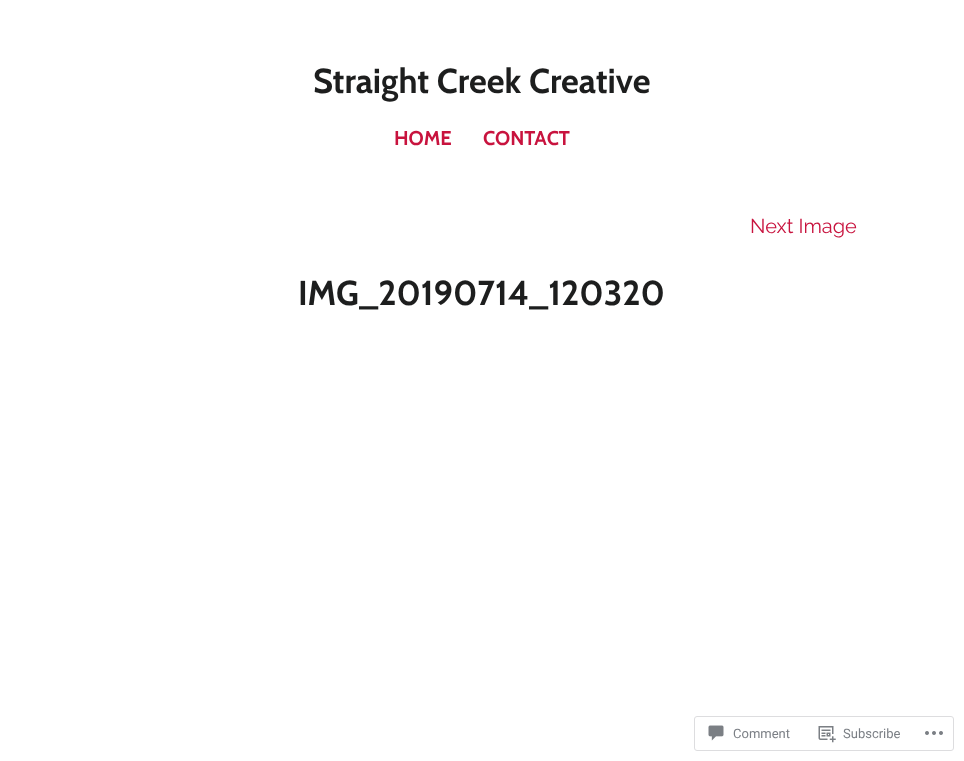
<?xml version="1.0" encoding="UTF-8"?>
<svg xmlns="http://www.w3.org/2000/svg" width="964" height="761">
    <rect width="100%" height="100%" fill="#FFFFFF"/>
    <text x="313" y="93" font-family="Cabin" font-size="34.5" font-weight="700" fill="#1D1E1E">Straight Creek Creative</text>
    <text x="394" y="145" font-family="Cabin" font-size="20" font-weight="700" fill="#C8133E">HOME</text>
    <text x="483" y="145" font-family="Cabin" font-size="20" font-weight="700" fill="#C8133E">CONTACT</text>
    <text x="750" y="233" font-family="Raleway" font-size="20" fill="#C8133E">Next Image</text>
    <text x="298" y="305" font-family="Cabin" font-size="34.5" font-weight="700" fill="#1D1E1E">IMG_20190714_120320</text>
    <rect x="694.5" y="716.5" width="259" height="34" rx="2.5" fill="none" stroke="#DDDDDF"/>
    <image x="708" y="725" width="16" height="16" href="img_01.png"/>
    <text x="733" y="738" font-family="Roboto" font-size="13" fill="#7B7F85">Comment</text>
    <image x="818" y="726" width="18" height="17" href="img_02.png"/>
    <text x="843" y="738" font-family="Roboto" font-size="13" fill="#7B7F85">Subscribe</text>
    <image x="925" y="731" width="18" height="4" href="img_03.png"/>
</svg>
